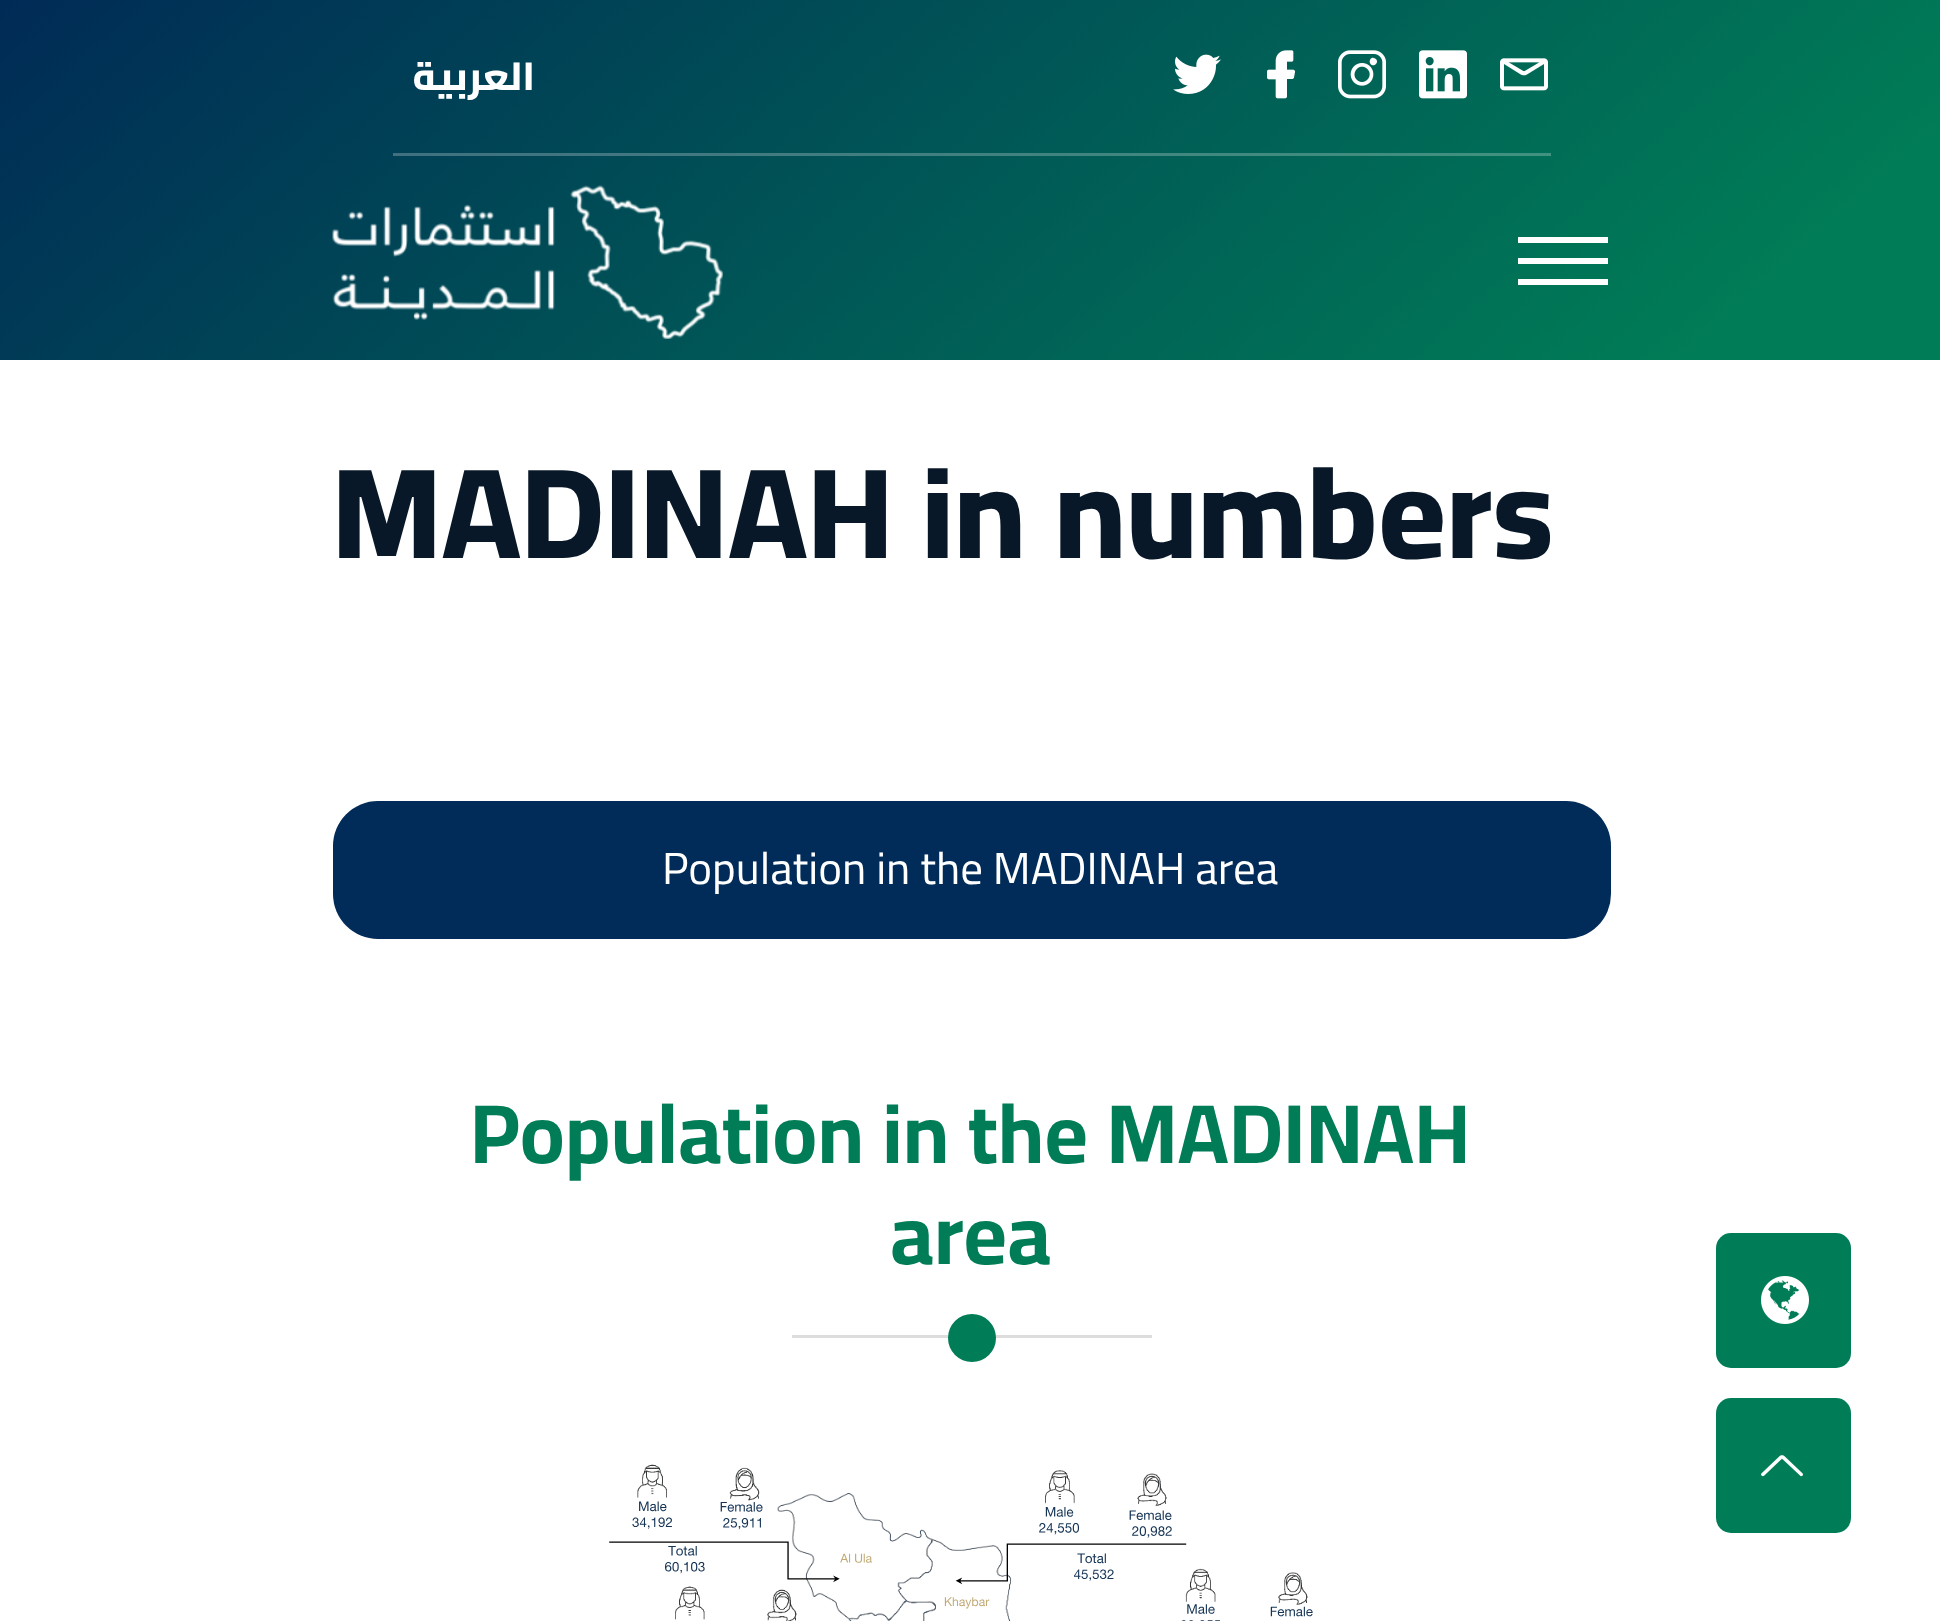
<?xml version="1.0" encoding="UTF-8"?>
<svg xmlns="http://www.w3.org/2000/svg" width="1940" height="1621">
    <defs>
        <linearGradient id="g1" gradientUnits="userSpaceOnUse" x1="1495" y1="762" x2="438" y2="-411"><stop offset="0.1" stop-color="#007D56"/><stop offset="1" stop-color="#002A56"/></linearGradient>
        <linearGradient id="g2" gradientUnits="userSpaceOnUse" x1="1495" y1="762" x2="438" y2="-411"><stop offset="0.1" stop-color="#409E80"/><stop offset="1" stop-color="#405F80"/></linearGradient>
    </defs>
    <rect width="100%" height="100%" fill="#FFFFFF"/>
    <rect x="0" y="0" width="1940" height="360" fill="url(#g1)"/>
    <rect x="393" y="153" width="1158" height="3" fill="url(#g2)"/>
    <text x="535" y="90" font-family="Cairo" font-size="39" font-weight="800" letter-spacing="3" direction="rtl" fill="#FFFFFF">العربية</text>
    <image x="1173" y="54" width="48" height="40" href="img_01.png"/>
    <image x="1267" y="50" width="29" height="49" href="img_02.png"/>
    <image x="1338" y="50" width="48" height="49" href="img_03.png"/>
    <image x="1419" y="50" width="48" height="49" href="img_04.png"/>
    <image x="1500" y="58" width="48" height="33" href="img_05.png"/>
    <image x="332" y="185" width="391" height="154" href="img_06.png"/>
    <rect x="1518" y="237" width="90" height="6" fill="#FFFFFF"/>
    <rect x="1518" y="258" width="90" height="6" fill="#FFFFFF"/>
    <rect x="1518" y="279" width="90" height="6" fill="#FFFFFF"/>
    <text x="332" y="558" font-family="Cairo" font-size="129" font-weight="800" fill="#081828">MADINAH in numbers</text>
    <rect x="333" y="801" width="1278" height="138" rx="45" fill="#012B58"/>
    <text x="662" y="884" font-family="Cairo" font-size="45" fill="#FFFFFF">Population in the MADINAH area</text>
    <text x="470" y="1163" font-family="Cairo" font-size="84" font-weight="700" fill="#007D56">Population in the MADINAH</text>
    <text x="890" y="1264" font-family="Cairo" font-size="84" font-weight="700" fill="#007D56">area</text>
    <rect x="792" y="1335" width="360" height="3" fill="#DDDDDD"/>
    <circle cx="972" cy="1338" r="24" fill="#007D56"/>
    <image x="609" y="1464" width="704" height="157" href="img_07.png"/>
    <rect x="1716" y="1233" width="135" height="135" rx="15" fill="#007D56"/>
    <image x="1761" y="1276" width="48" height="48" href="img_08.png"/>
    <rect x="1716" y="1398" width="135" height="135" rx="15" fill="#007D56"/>
    <image x="1761" y="1455" width="42" height="22" href="img_09.png"/>
</svg>
